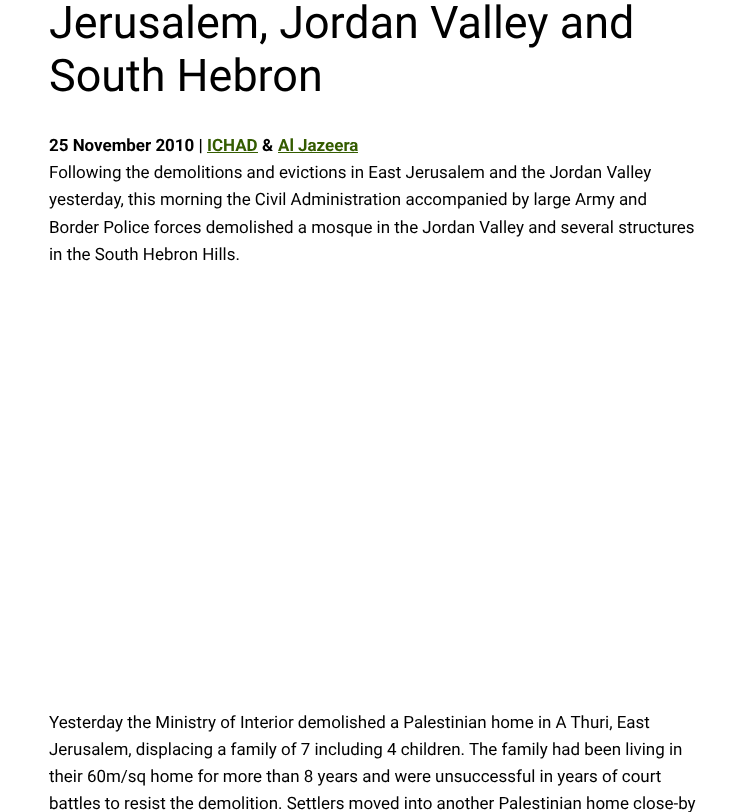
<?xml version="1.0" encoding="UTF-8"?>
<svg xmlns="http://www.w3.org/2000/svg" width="748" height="812">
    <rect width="100%" height="100%" fill="#FFFFFF"/>
    <text font-family="Roboto" font-size="44.9" fill="#000000">
        <tspan x="49" y="38">Jerusalem, Jordan Valley and</tspan>
        <tspan x="49" y="91">South Hebron</tspan>
    </text>
    <text x="49" y="151" font-family="Roboto" font-size="16.95" font-weight="700" fill="#000000">25 November 2010 |</text>
    <text x="207" y="151" font-family="Roboto" font-size="16.95" font-weight="700" fill="#345C00">ICHAD</text>
    <rect x="207" y="152" width="51" height="1" fill="#345C00"/>
    <text x="262" y="151" font-family="Roboto" font-size="16.95" font-weight="700" fill="#000000">&amp;</text>
    <text x="278" y="151" font-family="Roboto" font-size="16.95" font-weight="700" fill="#345C00">Al Jazeera</text>
    <rect x="278" y="152" width="80" height="1" fill="#345C00"/>
    <text font-family="Roboto" font-size="16.95" fill="#000000">
        <tspan x="49" y="178">Following the demolitions and evictions in East Jerusalem and the Jordan Valley</tspan>
        <tspan x="49" y="205">yesterday, this morning the Civil Administration accompanied by large Army and</tspan>
        <tspan x="49" y="233">Border Police forces demolished a mosque in the Jordan Valley and several structures</tspan>
        <tspan x="49" y="260">in the South Hebron Hills.</tspan>
    </text>
    <text font-family="Roboto" font-size="16.95" fill="#000000">
        <tspan x="49" y="728">Yesterday the Ministry of Interior demolished a Palestinian home in A Thuri, East</tspan>
        <tspan x="49" y="755">Jerusalem, displacing a family of 7 including 4 children. The family had been living in</tspan>
        <tspan x="49" y="782">their 60m/sq home for more than 8 years and were unsuccessful in years of court</tspan>
        <tspan x="49" y="809">battles to resist the demolition. Settlers moved into another Palestinian home close-by</tspan>
    </text>
</svg>
